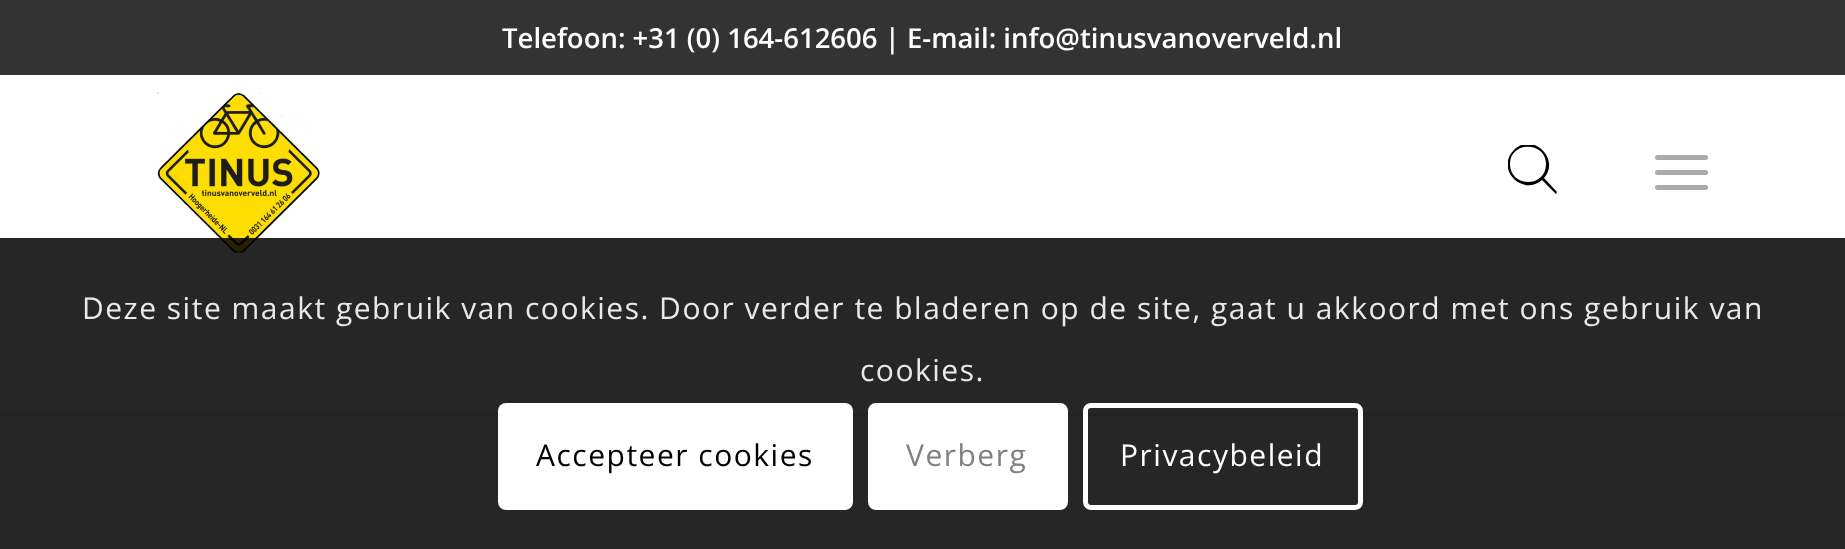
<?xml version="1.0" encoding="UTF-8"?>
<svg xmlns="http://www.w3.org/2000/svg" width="1845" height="549">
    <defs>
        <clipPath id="clip1"><rect x="1508" y="145" width="50" height="50"/></clipPath>
    </defs>
    <rect width="100%" height="100%" fill="#FFFFFF"/>
    <rect x="0" y="0" width="1845" height="75" fill="#333333"/>
    <text x="502" y="48" font-family="Open Sans" font-size="27.5" font-weight="600" fill="#FFFFFF">Telefoon: +31 (0) 164-612606 | E-mail: info@tinusvanoverveld.nl</text>
    <image x="157" y="92" width="163" height="161" href="img_01.png"/>
    <g clip-path="url(#clip1)">
        <path d="M 1557 192 L 1544 178 C 1561 159 1532 131 1514 150 C 1495 169 1522 197 1542 180 L 1556 194 Z M 1510 164 C 1510 141 1546 141 1546 164 C 1546 188 1510 188 1510 164 Z" fill="#000000"/>
    </g>
    <rect x="1655" y="170" width="53" height="5" rx="2.5" fill="#AAAAAA"/>
    <rect x="1655" y="155" width="53" height="5" rx="2.5" fill="#AAAAAA"/>
    <rect x="1655" y="185" width="53" height="5" rx="2.5" fill="#AAAAAA"/>
    <rect x="0" y="413" width="1845" height="3" fill="#E1E1E1"/>
    <rect x="0" y="238" width="1845" height="311" fill="#000000" fill-opacity="0.85"/>
    <text x="82" y="319" font-family="Open Sans" font-size="30" letter-spacing="1.5" fill="#E9E9E9">Deze site maakt gebruik van cookies. Door verder te bladeren op de site, gaat u akkoord met ons gebruik van</text>
    <text x="860" y="381" font-family="Open Sans" font-size="30" letter-spacing="1.5" fill="#E9E9E9">cookies.</text>
    <rect x="498" y="403" width="355" height="107" rx="8" fill="#FFFFFF"/>
    <text x="536" y="466" font-family="Open Sans" font-size="30" letter-spacing="1.5" fill="#000000">Accepteer cookies</text>
    <rect x="870.5" y="405.5" width="195" height="102" rx="5.5" fill="#FFFFFF" stroke="#FFFFFF" stroke-width="5"/>
    <text x="906" y="466" font-family="Open Sans" font-size="30" letter-spacing="1.5" fill="#808080">Verberg</text>
    <rect x="1085.5" y="405.5" width="275" height="102" rx="5.5" fill="none" stroke="#FFFFFF" stroke-width="5"/>
    <text x="1120" y="466" font-family="Open Sans" font-size="30" letter-spacing="1.5" fill="#FFFFFF">Privacybeleid</text>
</svg>
